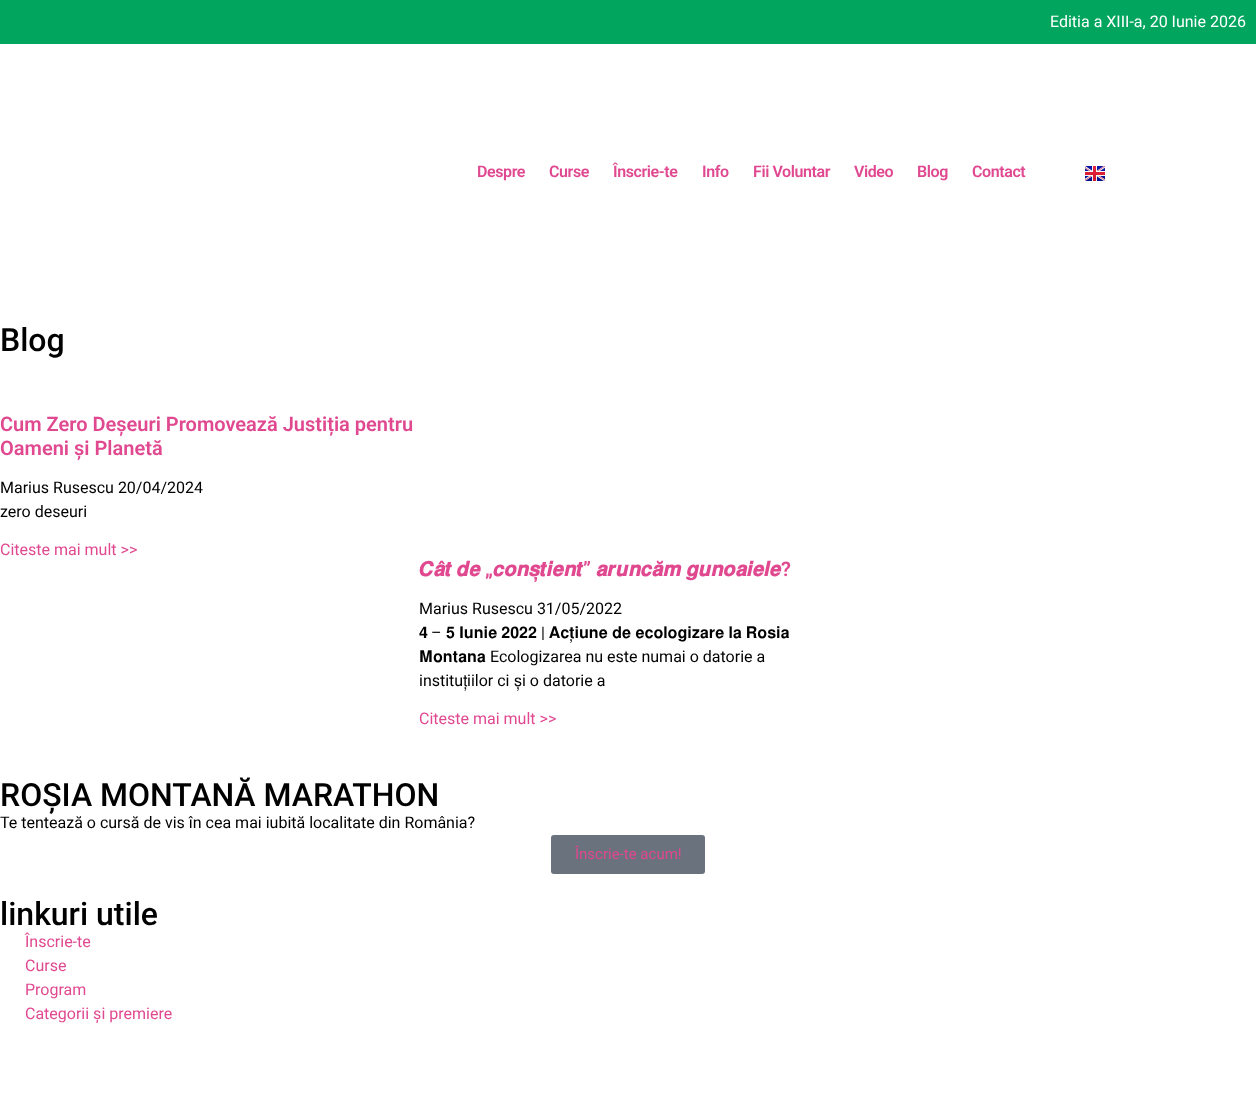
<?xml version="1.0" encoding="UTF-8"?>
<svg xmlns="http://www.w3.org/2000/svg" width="1256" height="1104">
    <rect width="100%" height="100%" fill="#FFFFFF"/>
    <rect x="0" y="0" width="1256" height="44" fill="#01A55E"/>
    <text x="1050" y="27" font-family="Roboto" font-size="16" fill="#FFFFFF">Editia a XIII-a, 20 Iunie 2026</text>
    <text x="477" y="177" font-family="Roboto" font-size="16" font-weight="600" letter-spacing="-0.4" fill="#E04890">Despre</text>
    <text x="549" y="177" font-family="Roboto" font-size="16" font-weight="600" letter-spacing="-0.4" fill="#E04890">Curse</text>
    <text x="613" y="177" font-family="Roboto" font-size="16" font-weight="600" letter-spacing="-0.4" fill="#E04890">Înscrie-te</text>
    <text x="702" y="177" font-family="Roboto" font-size="16" font-weight="600" letter-spacing="-0.4" fill="#E04890">Info</text>
    <text x="753" y="177" font-family="Roboto" font-size="16" font-weight="600" letter-spacing="-0.4" fill="#E04890">Fii Voluntar</text>
    <text x="854" y="177" font-family="Roboto" font-size="16" font-weight="600" letter-spacing="-0.4" fill="#E04890">Video</text>
    <text x="917" y="177" font-family="Roboto" font-size="16" font-weight="600" letter-spacing="-0.4" fill="#E04890">Blog</text>
    <text x="972" y="177" font-family="Roboto" font-size="16" font-weight="600" letter-spacing="-0.4" fill="#E04890">Contact</text>
    <image x="1085" y="166" width="20" height="15" href="img_01.png"/>
    <text x="0" y="351" font-family="Roboto" font-size="32" font-weight="500" fill="#000000">Blog</text>
    <text font-family="Roboto" font-size="20" font-weight="600" fill="#E04890">
        <tspan x="0" y="431">Cum Zero Deșeuri Promovează Justiția pentru</tspan>
        <tspan x="0" y="455">Oameni și Planetă</tspan>
    </text>
    <text font-family="Roboto" font-size="16" fill="#000000">
        <tspan x="0" y="493">Marius Rusescu 20/04/2024</tspan>
        <tspan x="0" y="517">zero deseuri</tspan>
    </text>
    <text x="0" y="555" font-family="Roboto" font-size="16" fill="#E04890">Citeste mai mult &gt;&gt;</text>
    <text x="419" y="576" font-family="FreeSans" font-size="20" font-weight="700" fill="#E04890">𝑪𝒂̂𝒕 𝒅𝒆</text>
    <text x="485" y="576" font-family="Roboto" font-size="20" font-weight="600" fill="#E04890">„</text>
    <text x="493" y="576" font-family="FreeSans" font-size="20" font-weight="700" fill="#E04890">𝒄𝒐𝒏𝒔̦𝒕𝒊𝒆𝒏𝒕</text>
    <text x="583" y="576" font-family="Roboto" font-size="20" font-weight="600" fill="#E04890">”</text>
    <text x="596" y="576" font-family="FreeSans" font-size="20" font-weight="700" fill="#E04890">𝒂𝒓𝒖𝒏𝒄𝒂̆𝒎 𝒈𝒖𝒏𝒐𝒂𝒊𝒆𝒍𝒆</text>
    <text x="781" y="576" font-family="Roboto" font-size="20" font-weight="600" fill="#E04890">?</text>
    <text x="419" y="614" font-family="Roboto" font-size="16" fill="#000000">Marius Rusescu 31/05/2022</text>
    <text x="419" y="638" font-family="FreeSans" font-size="16" fill="#000000">𝟒</text>
    <text x="431" y="638" font-family="Roboto" font-size="16" fill="#000000">–</text>
    <text x="446" y="638" font-family="FreeSans" font-size="16" fill="#000000">𝟓 𝐈𝐮𝐧𝐢𝐞 𝟐𝟎𝟐𝟐</text>
    <text x="541" y="638" font-family="Roboto" font-size="16" fill="#000000">|</text>
    <text x="549" y="638" font-family="FreeSans" font-size="16" fill="#000000">𝐀𝐜𝐭̦𝐢𝐮𝐧𝐞 𝐝𝐞 𝐞𝐜𝐨𝐥𝐨𝐠𝐢𝐳𝐚𝐫𝐞 𝐥𝐚 𝐑𝐨𝐬𝐢𝐚</text>
    <text x="419" y="662" font-family="FreeSans" font-size="16" fill="#000000">𝐌𝐨𝐧𝐭𝐚𝐧𝐚</text>
    <text x="490" y="662" font-family="Roboto" font-size="16" fill="#000000">Ecologizarea nu este numai o datorie a</text>
    <text x="419" y="686" font-family="Roboto" font-size="16" fill="#000000">institu</text>
    <text x="463" y="686" font-family="FreeSans" font-size="16" fill="#000000">ț</text>
    <text x="467" y="686" font-family="Roboto" font-size="16" fill="#000000">iilor ci</text>
    <text x="514" y="686" font-family="FreeSans" font-size="16" fill="#000000">ș</text>
    <text x="522" y="686" font-family="Roboto" font-size="16" fill="#000000">i o datorie a</text>
    <text x="419" y="724" font-family="Roboto" font-size="16" fill="#E04890">Citeste mai mult &gt;&gt;</text>
    <text x="0" y="806" font-family="Roboto" font-size="32" font-weight="500" fill="#000000">ROȘIA MONTANĂ MARATHON</text>
    <text x="0" y="828" font-family="Roboto" font-size="16" fill="#000000">Te tentează o cursă de vis în cea mai iubită localitate din România?</text>
    <rect x="551" y="835" width="154" height="39" rx="3" fill="#69727D"/>
    <text x="575" y="859" font-family="Roboto" font-size="15" fill="#E04890">Înscrie-te acum!</text>
    <text x="0" y="925" font-family="Roboto" font-size="32" font-weight="500" fill="#000000">linkuri utile</text>
    <text font-family="Roboto" font-size="16" fill="#E04890">
        <tspan x="25" y="947">Înscrie-te</tspan>
        <tspan x="25" y="971">Curse</tspan>
        <tspan x="25" y="995">Program</tspan>
        <tspan x="25" y="1019">Categorii și premiere</tspan>
    </text>
</svg>
